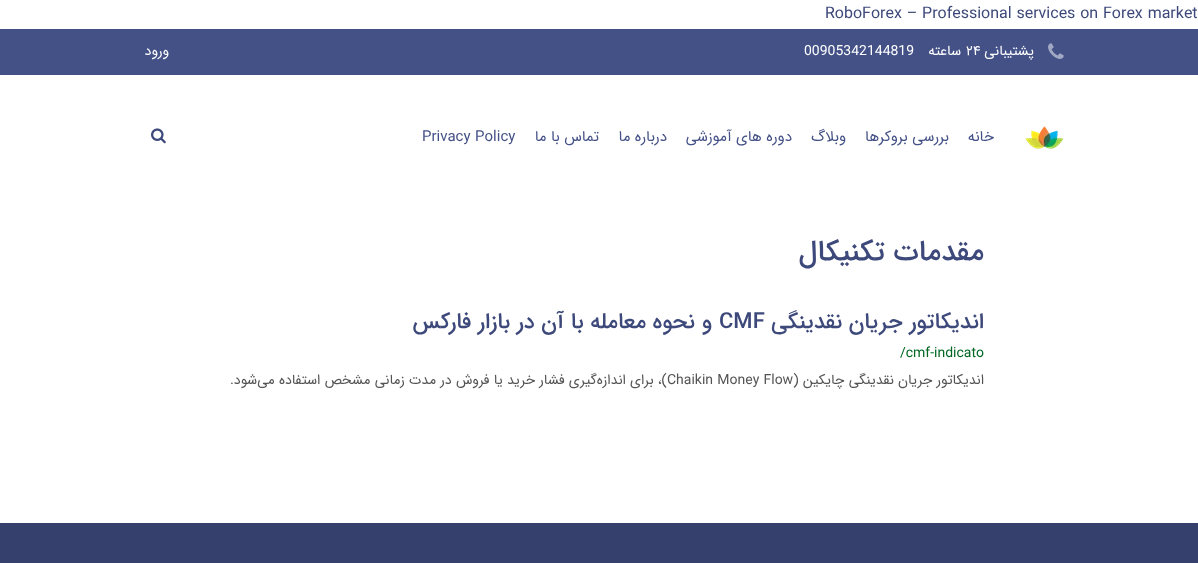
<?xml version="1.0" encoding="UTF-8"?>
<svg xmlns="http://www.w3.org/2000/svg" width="1198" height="563">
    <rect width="100%" height="100%" fill="#FFFFFF"/>
    <text x="825" y="18" font-family="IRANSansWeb" font-size="16" fill="#3D497A">RoboForex – Professional services on Forex market</text>
    <rect x="0" y="29" width="1198" height="46" fill="#435187"/>
    <image x="1048" y="43" width="16" height="16" href="img_01.png"/>
    <text x="1034" y="55" font-family="IRANSansWeb" font-size="14" direction="rtl" fill="#FFFFFF">پشتیبانی</text>
    <text x="966" y="55" font-family="IRANSansWeb" font-size="14" fill="#FFFFFF">۲۴</text>
    <text x="961" y="55" font-family="IRANSansWeb" font-size="14" direction="rtl" fill="#FFFFFF">ساعته</text>
    <text x="804" y="55" font-family="IRANSansWeb" font-size="14" fill="#FFFFFF">00905342144819</text>
    <text x="169" y="55" font-family="IRANSansWeb" font-size="14" direction="rtl" fill="#FFFFFF">ورود</text>
    <image x="1025" y="126" width="39" height="23" href="img_02.png"/>
    <text x="994" y="141" font-family="IRANSansWeb" font-size="15" direction="rtl" fill="#445186">خانه</text>
    <text x="949" y="141" font-family="IRANSansWeb" font-size="15" direction="rtl" fill="#445186">بررسی بروکرها</text>
    <text x="846" y="141" font-family="IRANSansWeb" font-size="15" direction="rtl" fill="#445186">وبلاگ</text>
    <text x="792" y="141" font-family="IRANSansWeb" font-size="15" direction="rtl" fill="#445186">دوره های آموزشی</text>
    <text x="667" y="141" font-family="IRANSansWeb" font-size="15" direction="rtl" fill="#445186">درباره ما</text>
    <text x="599" y="141" font-family="IRANSansWeb" font-size="15" direction="rtl" fill="#445186">تماس با ما</text>
    <text x="422" y="141" font-family="IRANSansWeb" font-size="15" fill="#445186">Privacy Policy</text>
    <image x="151" y="128" width="15" height="16" href="img_03.png"/>
    <text x="984" y="260" font-family="IRANSansWeb" font-size="28.75" font-weight="500" direction="rtl" fill="#3D497A">مقدمات تکنیکال</text>
    <text x="984" y="328" font-family="IRANSansWeb" font-size="22" font-weight="500" direction="rtl" fill="#3D497A">اندیکاتور جریان نقدینگی</text>
    <text x="719" y="328" font-family="IRANSansWeb" font-size="22" font-weight="500" fill="#3D497A">CMF</text>
    <text x="712" y="328" font-family="IRANSansWeb" font-size="22" font-weight="500" direction="rtl" fill="#3D497A">و نحوه معامله با آن در بازار فارکس</text>
    <text x="900" y="357" font-family="IRANSansWeb" font-size="14" fill="#006621">/cmf-indicato</text>
    <text x="984" y="384" font-family="IRANSansWeb" font-size="14" direction="rtl" fill="#545454">اندیکاتور جریان نقدینگی چایکین (</text>
    <text x="667" y="384" font-family="IRANSansWeb" font-size="14" fill="#545454">Chaikin Money Flow</text>
    <text x="667" y="384" font-family="IRANSansWeb" font-size="14" direction="rtl" fill="#545454">)، برای اندازه‌گیری فشار خرید یا فروش در مدت زمانی مشخص استفاده می‌شود.</text>
    <rect x="0" y="523" width="1198" height="40" fill="#36406C"/>
</svg>
